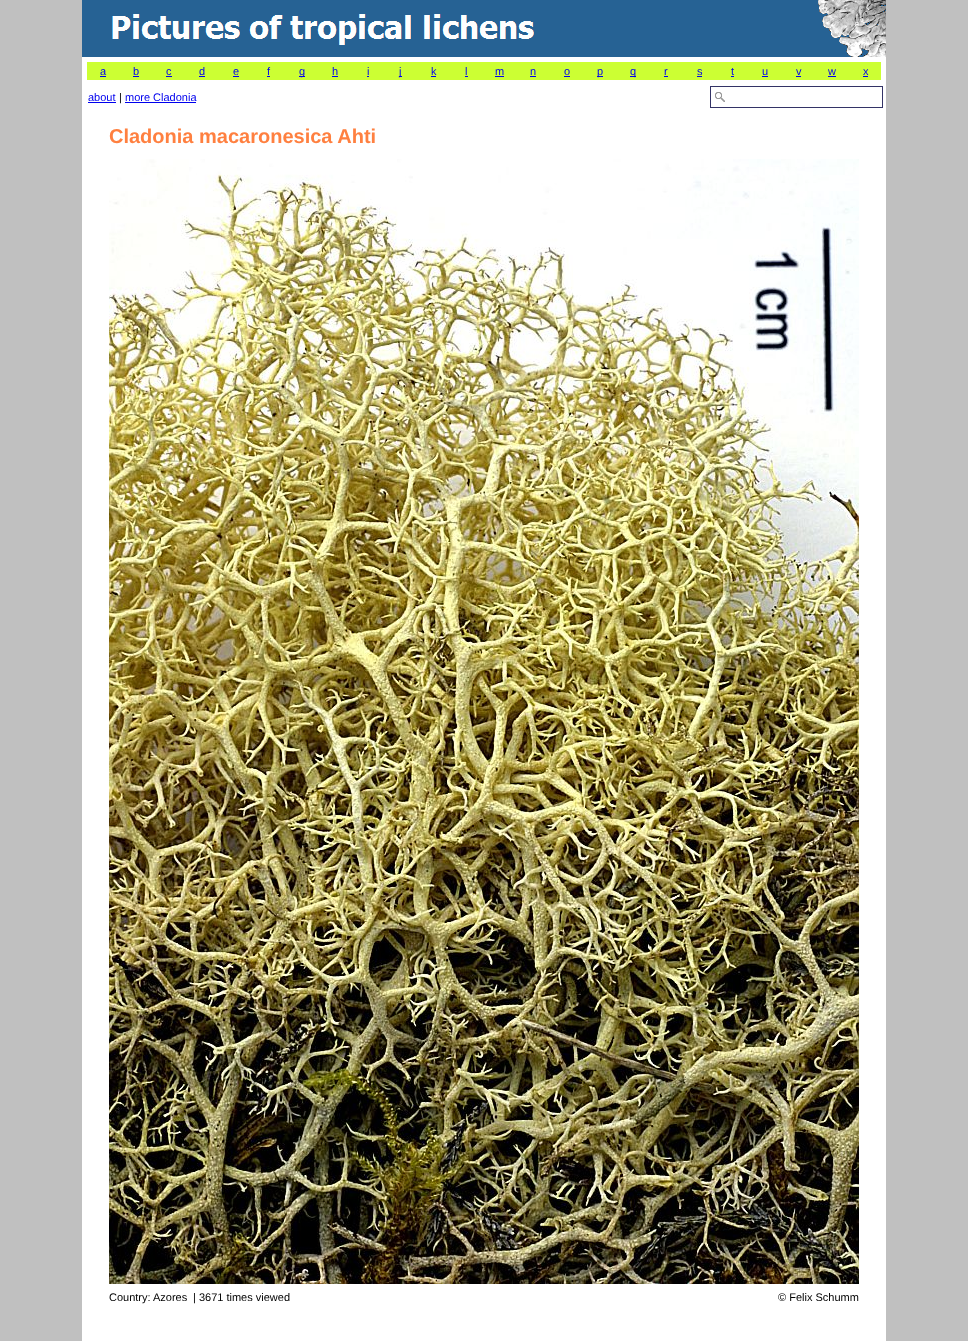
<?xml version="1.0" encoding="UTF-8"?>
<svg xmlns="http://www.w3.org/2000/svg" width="968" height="1341">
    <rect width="100%" height="100%" fill="#C0C0C0"/>
    <rect x="82" y="57" width="804" height="1284" fill="#FFFFFF"/>
    <rect x="82" y="0" width="804" height="57" fill="#266294"/>
    <image x="112" y="0" width="774" height="57" href="img_01.png"/>
    <rect x="87" y="62" width="794" height="18" fill="#CCFF33"/>
    <text x="100" y="75" font-family="Liberation Sans" font-size="11" fill="#0000EE">a</text>
    <rect x="100" y="76" width="6" height="1" fill="#0000EE"/>
    <text x="133" y="75" font-family="Liberation Sans" font-size="11" fill="#0000EE">b</text>
    <rect x="133" y="76" width="6" height="1" fill="#0000EE"/>
    <text x="166" y="75" font-family="Liberation Sans" font-size="11" fill="#0000EE">c</text>
    <rect x="166" y="76" width="6" height="1" fill="#0000EE"/>
    <text x="199" y="75" font-family="Liberation Sans" font-size="11" fill="#0000EE">d</text>
    <rect x="199" y="76" width="6" height="1" fill="#0000EE"/>
    <text x="233" y="75" font-family="Liberation Sans" font-size="11" fill="#0000EE">e</text>
    <rect x="233" y="76" width="6" height="1" fill="#0000EE"/>
    <text x="267" y="75" font-family="Liberation Sans" font-size="11" fill="#0000EE">f</text>
    <rect x="267" y="76" width="3" height="1" fill="#0000EE"/>
    <rect x="299" y="76" width="6" height="1" fill="#0000EE"/>
    <text x="299" y="75" font-family="Liberation Sans" font-size="11" fill="#0000EE">g</text>
    <text x="332" y="75" font-family="Liberation Sans" font-size="11" fill="#0000EE">h</text>
    <rect x="332" y="76" width="6" height="1" fill="#0000EE"/>
    <text x="367" y="75" font-family="Liberation Sans" font-size="11" fill="#0000EE">i</text>
    <rect x="367" y="76" width="2" height="1" fill="#0000EE"/>
    <rect x="399" y="76" width="3" height="1" fill="#0000EE"/>
    <text x="399" y="75" font-family="Liberation Sans" font-size="11" fill="#0000EE">j</text>
    <text x="431" y="75" font-family="Liberation Sans" font-size="11" fill="#0000EE">k</text>
    <rect x="431" y="76" width="5" height="1" fill="#0000EE"/>
    <text x="465" y="75" font-family="Liberation Sans" font-size="11" fill="#0000EE">l</text>
    <rect x="465" y="76" width="3" height="1" fill="#0000EE"/>
    <text x="495" y="75" font-family="Liberation Sans" font-size="11" fill="#0000EE">m</text>
    <rect x="495" y="76" width="9" height="1" fill="#0000EE"/>
    <text x="530" y="75" font-family="Liberation Sans" font-size="11" fill="#0000EE">n</text>
    <rect x="530" y="76" width="6" height="1" fill="#0000EE"/>
    <text x="564" y="75" font-family="Liberation Sans" font-size="11" fill="#0000EE">o</text>
    <rect x="564" y="76" width="6" height="1" fill="#0000EE"/>
    <rect x="597" y="76" width="6" height="1" fill="#0000EE"/>
    <text x="597" y="75" font-family="Liberation Sans" font-size="11" fill="#0000EE">p</text>
    <rect x="630" y="76" width="6" height="1" fill="#0000EE"/>
    <text x="630" y="75" font-family="Liberation Sans" font-size="11" fill="#0000EE">q</text>
    <text x="664" y="75" font-family="Liberation Sans" font-size="11" fill="#0000EE">r</text>
    <rect x="664" y="76" width="4" height="1" fill="#0000EE"/>
    <text x="697" y="75" font-family="Liberation Sans" font-size="11" fill="#0000EE">s</text>
    <rect x="697" y="76" width="5" height="1" fill="#0000EE"/>
    <text x="731" y="75" font-family="Liberation Sans" font-size="11" fill="#0000EE">t</text>
    <rect x="731" y="76" width="3" height="1" fill="#0000EE"/>
    <text x="762" y="75" font-family="Liberation Sans" font-size="11" fill="#0000EE">u</text>
    <rect x="762" y="76" width="6" height="1" fill="#0000EE"/>
    <text x="796" y="75" font-family="Liberation Sans" font-size="11" fill="#0000EE">v</text>
    <rect x="796" y="76" width="5" height="1" fill="#0000EE"/>
    <text x="828" y="75" font-family="Liberation Sans" font-size="11" fill="#0000EE">w</text>
    <rect x="828" y="76" width="8" height="1" fill="#0000EE"/>
    <text x="863" y="75" font-family="Liberation Sans" font-size="11" fill="#0000EE">x</text>
    <rect x="863" y="76" width="5" height="1" fill="#0000EE"/>
    <text x="88" y="101" font-family="Liberation Sans" font-size="11" fill="#0000EE">about</text>
    <rect x="88" y="102" width="28" height="1" fill="#0000EE"/>
    <text x="119" y="101" font-family="Liberation Sans" font-size="11" fill="#000000">|</text>
    <text x="125" y="101" font-family="Liberation Sans" font-size="11" fill="#0000EE">more Cladonia</text>
    <rect x="125" y="102" width="71" height="1" fill="#0000EE"/>
    <image x="715" y="92" width="10" height="10" href="img_02.png"/>
    <rect x="710.5" y="86.5" width="172" height="21" fill="none" stroke="#333366"/>
    <text x="109" y="143" font-family="Liberation Sans" font-size="20" font-weight="700" fill="#FF8040">Cladonia macaronesica Ahti</text>
    <image x="109" y="159" width="750" height="1125" href="img_03.png"/>
    <text x="109" y="1301" font-family="Liberation Sans" font-size="11" fill="#000000">Country:</text>
    <text x="153" y="1301" font-family="Liberation Sans" font-size="11" fill="#000000">Azores</text>
    <text x="193" y="1301" font-family="Liberation Sans" font-size="11" fill="#000000">| 3671 times viewed</text>
    <text x="778" y="1301" font-family="Liberation Sans" font-size="11" fill="#000000">© Felix Schumm</text>
</svg>
